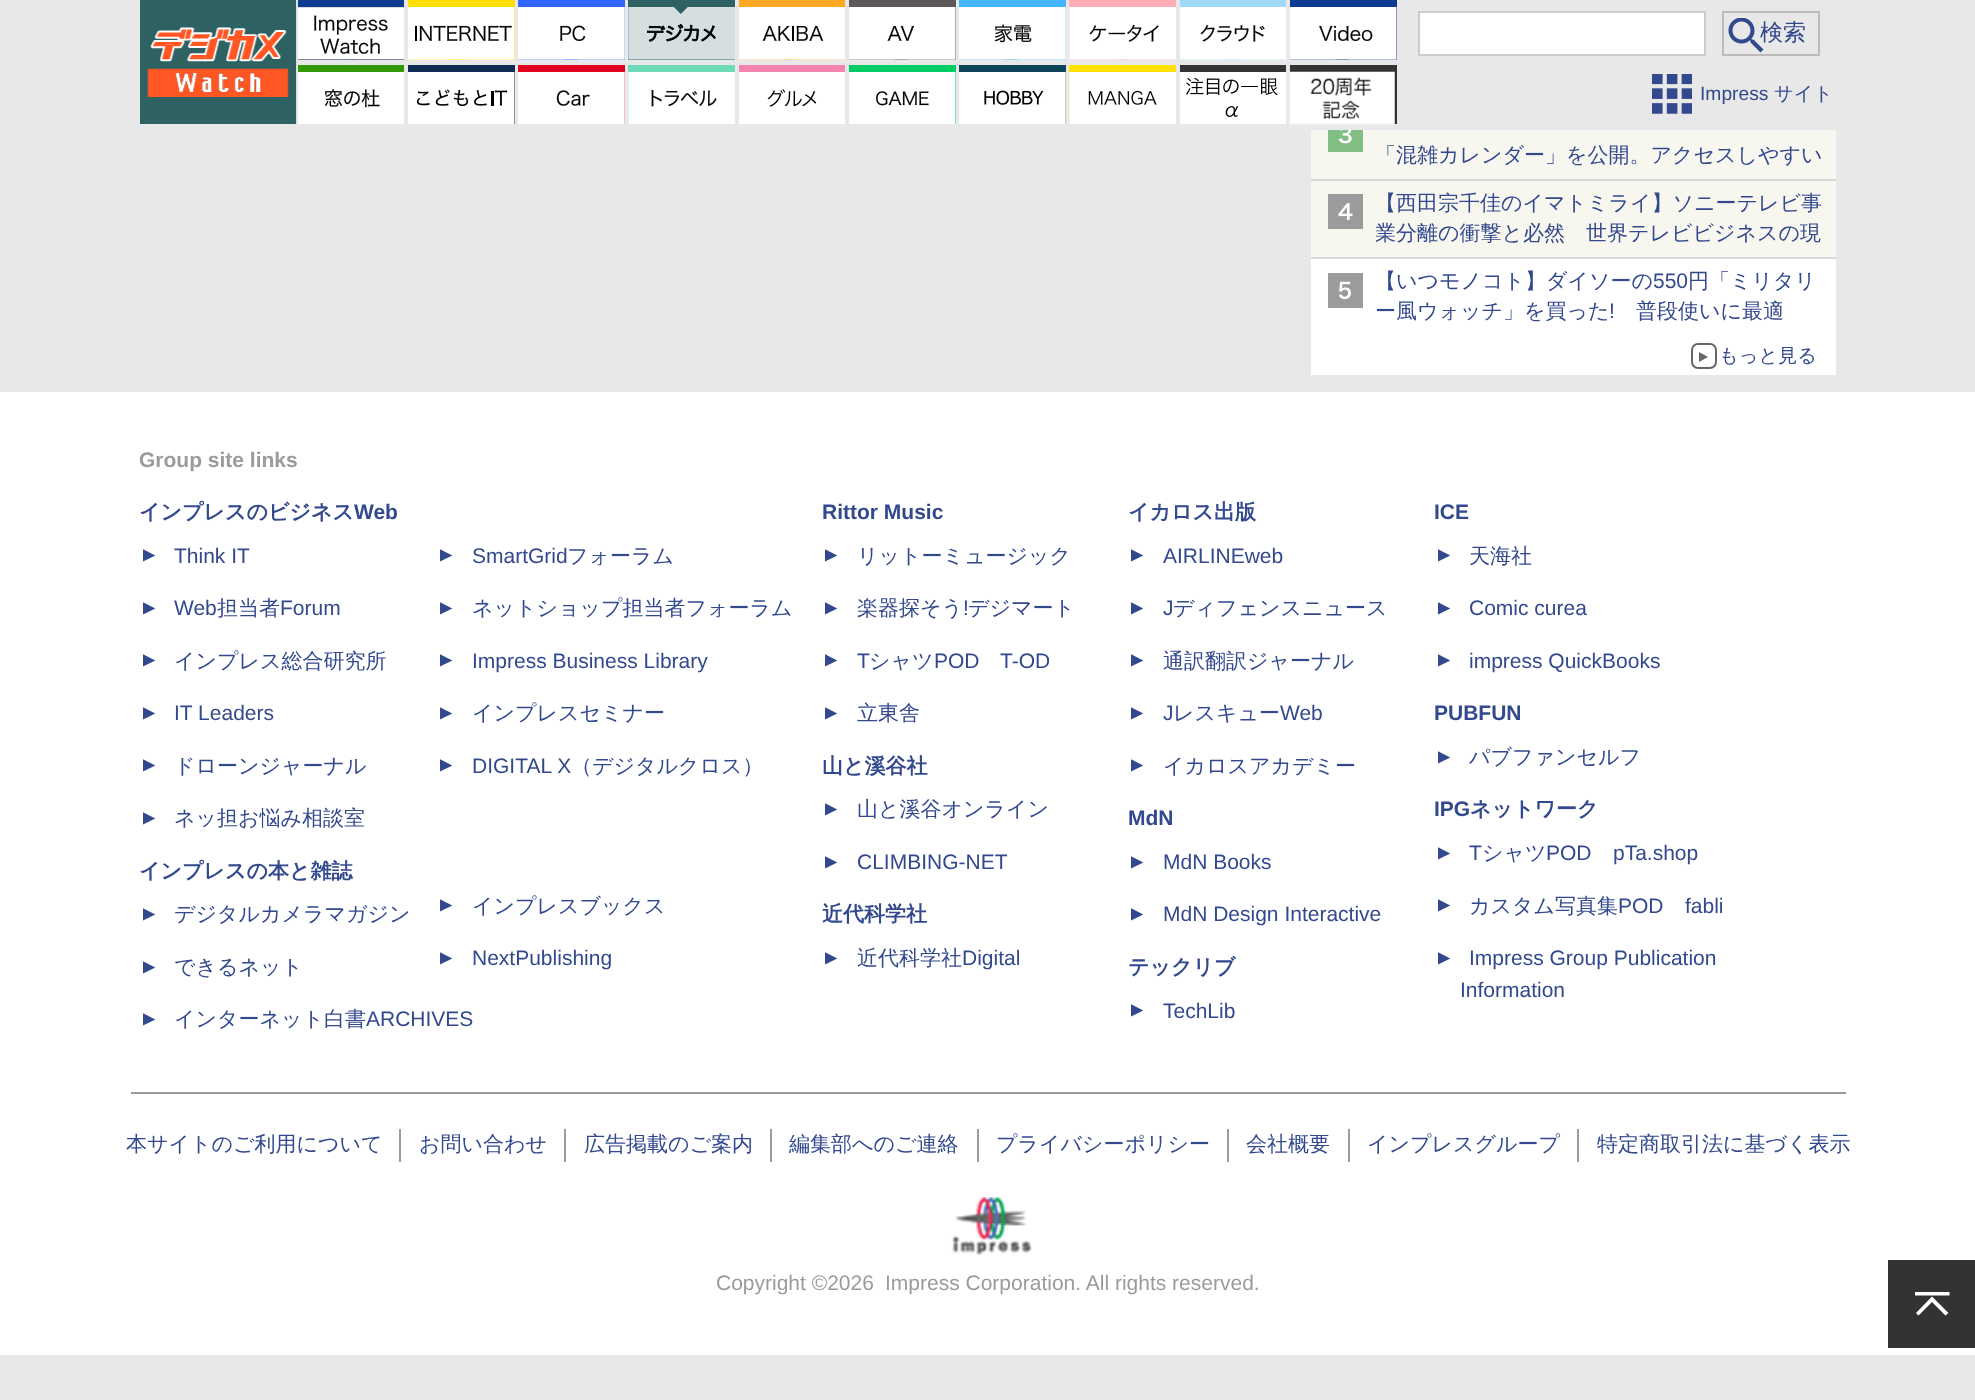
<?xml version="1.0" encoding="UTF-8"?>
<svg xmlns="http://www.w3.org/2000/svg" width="1975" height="1400">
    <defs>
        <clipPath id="clip1"><rect x="1376" y="189" width="451" height="60"/></clipPath>
        <clipPath id="clip2"><rect x="1915" y="1292" width="35" height="24"/></clipPath>
    </defs>
    <rect width="100%" height="100%" fill="#E8E8E8"/>
    <rect x="140" y="0" width="156" height="124" fill="#2E6162"/>
    <image x="147" y="0" width="150" height="124" href="img_01.png"/>
    <rect x="298" y="0" width="106" height="60" fill="#0D3B91"/>
    <image x="298" y="7" width="106" height="53" href="img_02.png"/>
    <rect x="408" y="0" width="107" height="60" fill="#FFDE00"/>
    <image x="408" y="7" width="107" height="53" href="img_03.png"/>
    <rect x="518" y="0" width="107" height="60" fill="#3366FF"/>
    <image x="518" y="7" width="107" height="53" href="img_04.png"/>
    <rect x="628" y="0" width="107" height="60" fill="#2E6162"/>
    <image x="628" y="7" width="107" height="53" href="img_05.png"/>
    <rect x="739" y="0" width="106" height="60" fill="#FFA824"/>
    <image x="739" y="7" width="106" height="53" href="img_06.png"/>
    <rect x="849" y="0" width="107" height="60" fill="#5E5858"/>
    <image x="849" y="7" width="107" height="53" href="img_07.png"/>
    <rect x="959" y="0" width="107" height="60" fill="#42B6FF"/>
    <image x="959" y="7" width="107" height="53" href="img_08.png"/>
    <rect x="1069" y="0" width="107" height="60" fill="#FFACB7"/>
    <image x="1069" y="7" width="107" height="53" href="img_09.png"/>
    <rect x="1180" y="0" width="106" height="60" fill="#9FD9F6"/>
    <image x="1180" y="7" width="106" height="53" href="img_10.png"/>
    <rect x="1290" y="0" width="107" height="60" fill="#0D3B91"/>
    <image x="1290" y="7" width="107" height="53" href="img_11.png"/>
    <rect x="1419" y="12" width="286" height="43" fill="#FFFFFF" stroke="#CCCCCC" stroke-width="2"/>
    <image x="1728" y="18" width="36" height="35" href="img_12.png"/>
    <rect x="1723" y="12" width="96" height="43" fill="none" stroke="#BBBBBB" stroke-width="2"/>
    <text x="1760" y="40" font-family="WenQuanYi Zen Hei" font-size="23" font-weight="500" fill="#33498E">検索</text>
    <rect x="298" y="65" width="106" height="7" fill="#339900"/>
    <image x="298" y="72" width="106" height="52" href="img_13.png"/>
    <rect x="408" y="65" width="107" height="59" fill="#102C54"/>
    <image x="408" y="72" width="107" height="52" href="img_14.png"/>
    <rect x="518" y="65" width="107" height="59" fill="#E30121"/>
    <image x="518" y="72" width="107" height="52" href="img_15.png"/>
    <rect x="628" y="65" width="107" height="59" fill="#6EDAB8"/>
    <image x="628" y="72" width="107" height="52" href="img_16.png"/>
    <rect x="739" y="65" width="106" height="7" fill="#F583AE"/>
    <image x="739" y="72" width="106" height="52" href="img_17.png"/>
    <rect x="849" y="65" width="107" height="59" fill="#00CC66"/>
    <image x="849" y="72" width="107" height="52" href="img_18.png"/>
    <rect x="959" y="65" width="107" height="59" fill="#0E4459"/>
    <image x="959" y="72" width="107" height="52" href="img_19.png"/>
    <rect x="1069" y="65" width="107" height="59" fill="#FFE200"/>
    <image x="1069" y="72" width="107" height="52" href="img_20.png"/>
    <rect x="1180" y="65" width="106" height="7" fill="#333333"/>
    <image x="1180" y="72" width="106" height="52" href="img_21.png"/>
    <rect x="1290" y="65" width="107" height="59" fill="#333333"/>
    <image x="1289" y="71" width="106" height="54" href="img_22.png"/>
    <image x="1652" y="74" width="40" height="40" href="img_23.png"/>
    <text x="1700" y="100" font-family="Liberation Sans" font-size="19.25" fill="#33498E">Impress</text>
    <text x="1774" y="100" font-family="WenQuanYi Zen Hei" font-size="19.25" font-weight="500" fill="#33498E">サイト</text>
    <rect x="1311" y="181" width="525" height="76" fill="#F7F7EF"/>
    <rect x="1311" y="130" width="525" height="49" fill="#F7F7EF"/>
    <rect x="1311" y="179" width="525" height="2" fill="#D8D8D8"/>
    <image x="1328" y="130" width="35" height="22" href="img_24.png"/>
    <text x="1375" y="162" font-family="WenQuanYi Zen Hei" font-size="21" font-weight="500" fill="#33498E">「混雑カレンダー」を公開。アクセスしやすい</text>
    <rect x="1311" y="257" width="525" height="2" fill="#D8D8D8"/>
    <image x="1328" y="194" width="35" height="35" href="img_25.png"/>
    <text x="1375" y="210" font-family="WenQuanYi Zen Hei" font-size="21" font-weight="500" fill="#33498E">【西田宗千佳のイマトミライ】ソニーテレビ事</text>
    <g clip-path="url(#clip1)">
        <text x="1375" y="240" font-family="WenQuanYi Zen Hei" font-size="21" font-weight="500" fill="#33498E">業分離の衝撃と必然　世界テレビビジネスの現</text>
    </g>
    <rect x="1311" y="259" width="525" height="116" fill="#FFFFFF"/>
    <image x="1328" y="273" width="35" height="35" href="img_26.png"/>
    <text x="1375" y="288" font-family="WenQuanYi Zen Hei" font-size="21" font-weight="500" fill="#33498E">【いつモノコト】ダイソーの</text>
    <text x="1653" y="288" font-family="Liberation Sans" font-size="21" fill="#33498E">550</text>
    <text x="1688" y="288" font-family="WenQuanYi Zen Hei" font-size="21" font-weight="500" fill="#33498E">円「ミリタリ</text>
    <text x="1375" y="318" font-family="WenQuanYi Zen Hei" font-size="21" font-weight="500" fill="#33498E">ー風ウォッチ」を買った</text>
    <text x="1609" y="318" font-family="Liberation Sans" font-size="21" fill="#33498E">!</text>
    <text x="1636" y="318" font-family="WenQuanYi Zen Hei" font-size="21" font-weight="500" fill="#33498E">普段使いに最適</text>
    <rect x="1692" y="344" width="24" height="24" rx="6" fill="none" stroke="#666666" stroke-width="2"/>
    <text x="1719" y="362" font-family="WenQuanYi Zen Hei" font-size="19.25" font-weight="500" fill="#33498E">もっと見る</text>
    <path d="M 1699 362 V 352 L 1708 357 Z" fill="#666666"/>
    <rect x="0" y="392" width="1975" height="963" fill="#FFFFFF"/>
    <rect x="131" y="1092" width="1715" height="2" fill="#9B9B9B"/>
    <text x="139" y="467" font-family="Liberation Sans" font-size="21" font-weight="700" fill="#9B9B9B">Group site links</text>
    <text x="139" y="519" font-family="WenQuanYi Zen Hei" font-size="21" font-weight="700" fill="#33498E">インプレスのビジネス</text>
    <text x="354" y="519" font-family="Liberation Sans" font-size="21" font-weight="700" fill="#33498E">Web</text>
    <text x="143" y="545" transform="rotate(90 143 545)" font-family="Liberation Sans" font-size="21" fill="#33498E">▲</text>
    <text x="174" y="563" font-family="Liberation Sans" font-size="21" fill="#33498E">Think IT</text>
    <text x="143" y="598" transform="rotate(90 143 598)" font-family="Liberation Sans" font-size="21" fill="#33498E">▲</text>
    <text x="174" y="615" font-family="Liberation Sans" font-size="21" fill="#33498E">Web</text>
    <text x="217" y="615" font-family="WenQuanYi Zen Hei" font-size="21" font-weight="500" fill="#33498E">担当者</text>
    <text x="280" y="615" font-family="Liberation Sans" font-size="21" fill="#33498E">Forum</text>
    <text x="143" y="650" transform="rotate(90 143 650)" font-family="Liberation Sans" font-size="21" fill="#33498E">▲</text>
    <text x="174" y="668" font-family="WenQuanYi Zen Hei" font-size="21" font-weight="500" fill="#33498E">インプレス総合研究所</text>
    <text x="143" y="703" transform="rotate(90 143 703)" font-family="Liberation Sans" font-size="21" fill="#33498E">▲</text>
    <text x="174" y="720" font-family="Liberation Sans" font-size="21" fill="#33498E">IT Leaders</text>
    <text x="143" y="755" transform="rotate(90 143 755)" font-family="Liberation Sans" font-size="21" fill="#33498E">▲</text>
    <text x="174" y="773" font-family="WenQuanYi Zen Hei" font-size="21" font-weight="500" fill="#33498E">ドローンジャーナル</text>
    <text x="143" y="808" transform="rotate(90 143 808)" font-family="Liberation Sans" font-size="21" fill="#33498E">▲</text>
    <text x="174" y="825" font-family="WenQuanYi Zen Hei" font-size="21" font-weight="500" fill="#33498E">ネッ担お悩み相談室</text>
    <text x="139" y="878" font-family="WenQuanYi Zen Hei" font-size="21" font-weight="700" fill="#33498E">インプレスの本と雑誌</text>
    <text x="143" y="904" transform="rotate(90 143 904)" font-family="Liberation Sans" font-size="21" fill="#33498E">▲</text>
    <text x="174" y="921" font-family="WenQuanYi Zen Hei" font-size="21" font-weight="500" fill="#33498E">デジタルカメラマガジン</text>
    <text x="143" y="957" transform="rotate(90 143 957)" font-family="Liberation Sans" font-size="21" fill="#33498E">▲</text>
    <text x="174" y="974" font-family="WenQuanYi Zen Hei" font-size="21" font-weight="500" fill="#33498E">できるネット</text>
    <text x="143" y="1009" transform="rotate(90 143 1009)" font-family="Liberation Sans" font-size="21" fill="#33498E">▲</text>
    <text x="174" y="1026" font-family="WenQuanYi Zen Hei" font-size="21" font-weight="500" fill="#33498E">インターネット白書</text>
    <text x="366" y="1026" font-family="Liberation Sans" font-size="21" fill="#33498E">ARCHIVES</text>
    <text x="440" y="545" transform="rotate(90 440 545)" font-family="Liberation Sans" font-size="21" fill="#33498E">▲</text>
    <text x="472" y="563" font-family="Liberation Sans" font-size="21" fill="#33498E">SmartGrid</text>
    <text x="567" y="563" font-family="WenQuanYi Zen Hei" font-size="21" font-weight="500" fill="#33498E">フォーラム</text>
    <text x="440" y="598" transform="rotate(90 440 598)" font-family="Liberation Sans" font-size="21" fill="#33498E">▲</text>
    <text x="472" y="615" font-family="WenQuanYi Zen Hei" font-size="21" font-weight="500" fill="#33498E">ネットショップ担当者フォーラム</text>
    <text x="440" y="650" transform="rotate(90 440 650)" font-family="Liberation Sans" font-size="21" fill="#33498E">▲</text>
    <text x="472" y="668" font-family="Liberation Sans" font-size="21" fill="#33498E">Impress Business Library</text>
    <text x="440" y="703" transform="rotate(90 440 703)" font-family="Liberation Sans" font-size="21" fill="#33498E">▲</text>
    <text x="472" y="720" font-family="WenQuanYi Zen Hei" font-size="21" font-weight="500" fill="#33498E">インプレスセミナー</text>
    <text x="440" y="755" transform="rotate(90 440 755)" font-family="Liberation Sans" font-size="21" fill="#33498E">▲</text>
    <text x="472" y="773" font-family="Liberation Sans" font-size="21" fill="#33498E">DIGITAL X</text>
    <text x="571" y="773" font-family="WenQuanYi Zen Hei" font-size="21" font-weight="500" fill="#33498E">（デジタルクロス）</text>
    <text x="440" y="895" transform="rotate(90 440 895)" font-family="Liberation Sans" font-size="21" fill="#33498E">▲</text>
    <text x="472" y="913" font-family="WenQuanYi Zen Hei" font-size="21" font-weight="500" fill="#33498E">インプレスブックス</text>
    <text x="440" y="948" transform="rotate(90 440 948)" font-family="Liberation Sans" font-size="21" fill="#33498E">▲</text>
    <text x="472" y="965" font-family="Liberation Sans" font-size="21" fill="#33498E">NextPublishing</text>
    <text x="822" y="519" font-family="Liberation Sans" font-size="21" font-weight="700" fill="#33498E">Rittor Music</text>
    <text x="825" y="545" transform="rotate(90 825 545)" font-family="Liberation Sans" font-size="21" fill="#33498E">▲</text>
    <text x="857" y="563" font-family="WenQuanYi Zen Hei" font-size="21" font-weight="500" fill="#33498E">リットーミュージック</text>
    <text x="825" y="598" transform="rotate(90 825 598)" font-family="Liberation Sans" font-size="21" fill="#33498E">▲</text>
    <text x="857" y="615" font-family="WenQuanYi Zen Hei" font-size="21" font-weight="500" fill="#33498E">楽器探そう</text>
    <text x="963" y="615" font-family="Liberation Sans" font-size="21" fill="#33498E">!</text>
    <text x="968" y="615" font-family="WenQuanYi Zen Hei" font-size="21" font-weight="500" fill="#33498E">デジマート</text>
    <text x="825" y="650" transform="rotate(90 825 650)" font-family="Liberation Sans" font-size="21" fill="#33498E">▲</text>
    <text x="857" y="668" font-family="Liberation Sans" font-size="21" fill="#33498E">T</text>
    <text x="869" y="668" font-family="WenQuanYi Zen Hei" font-size="21" font-weight="500" fill="#33498E">シャツ</text>
    <text x="934" y="668" font-family="Liberation Sans" font-size="21" fill="#33498E">POD</text>
    <text x="1000" y="668" font-family="Liberation Sans" font-size="21" fill="#33498E">T-OD</text>
    <text x="825" y="703" transform="rotate(90 825 703)" font-family="Liberation Sans" font-size="21" fill="#33498E">▲</text>
    <text x="857" y="720" font-family="WenQuanYi Zen Hei" font-size="21" font-weight="500" fill="#33498E">立東舎</text>
    <text x="822" y="773" font-family="WenQuanYi Zen Hei" font-size="21" font-weight="700" fill="#33498E">山と溪谷社</text>
    <text x="825" y="799" transform="rotate(90 825 799)" font-family="Liberation Sans" font-size="21" fill="#33498E">▲</text>
    <text x="857" y="816" font-family="WenQuanYi Zen Hei" font-size="21" font-weight="500" fill="#33498E">山と溪谷オンライン</text>
    <text x="825" y="852" transform="rotate(90 825 852)" font-family="Liberation Sans" font-size="21" fill="#33498E">▲</text>
    <text x="857" y="869" font-family="Liberation Sans" font-size="21" fill="#33498E">CLIMBING-NET</text>
    <text x="822" y="921" font-family="WenQuanYi Zen Hei" font-size="21" font-weight="700" fill="#33498E">近代科学社</text>
    <text x="825" y="948" transform="rotate(90 825 948)" font-family="Liberation Sans" font-size="21" fill="#33498E">▲</text>
    <text x="857" y="965" font-family="WenQuanYi Zen Hei" font-size="21" font-weight="500" fill="#33498E">近代科学社</text>
    <text x="962" y="965" font-family="Liberation Sans" font-size="21" fill="#33498E">Digital</text>
    <text x="1128" y="519" font-family="WenQuanYi Zen Hei" font-size="21" font-weight="700" fill="#33498E">イカロス出版</text>
    <text x="1131" y="545" transform="rotate(90 1131 545)" font-family="Liberation Sans" font-size="21" fill="#33498E">▲</text>
    <text x="1163" y="563" font-family="Liberation Sans" font-size="21" fill="#33498E">AIRLINEweb</text>
    <text x="1131" y="598" transform="rotate(90 1131 598)" font-family="Liberation Sans" font-size="21" fill="#33498E">▲</text>
    <text x="1163" y="615" font-family="Liberation Sans" font-size="21" fill="#33498E">J</text>
    <text x="1173" y="615" font-family="WenQuanYi Zen Hei" font-size="21" font-weight="500" fill="#33498E">ディフェンスニュース</text>
    <text x="1131" y="650" transform="rotate(90 1131 650)" font-family="Liberation Sans" font-size="21" fill="#33498E">▲</text>
    <text x="1163" y="668" font-family="WenQuanYi Zen Hei" font-size="21" font-weight="500" fill="#33498E">通訳翻訳ジャーナル</text>
    <text x="1131" y="703" transform="rotate(90 1131 703)" font-family="Liberation Sans" font-size="21" fill="#33498E">▲</text>
    <text x="1163" y="720" font-family="Liberation Sans" font-size="21" fill="#33498E">J</text>
    <text x="1173" y="720" font-family="WenQuanYi Zen Hei" font-size="21" font-weight="500" fill="#33498E">レスキュー</text>
    <text x="1280" y="720" font-family="Liberation Sans" font-size="21" fill="#33498E">Web</text>
    <text x="1131" y="755" transform="rotate(90 1131 755)" font-family="Liberation Sans" font-size="21" fill="#33498E">▲</text>
    <text x="1163" y="773" font-family="WenQuanYi Zen Hei" font-size="21" font-weight="500" fill="#33498E">イカロスアカデミー</text>
    <text x="1128" y="825" font-family="Liberation Sans" font-size="21" font-weight="700" fill="#33498E">MdN</text>
    <text x="1131" y="852" transform="rotate(90 1131 852)" font-family="Liberation Sans" font-size="21" fill="#33498E">▲</text>
    <text x="1163" y="869" font-family="Liberation Sans" font-size="21" fill="#33498E">MdN Books</text>
    <text x="1131" y="904" transform="rotate(90 1131 904)" font-family="Liberation Sans" font-size="21" fill="#33498E">▲</text>
    <text x="1163" y="921" font-family="Liberation Sans" font-size="21" fill="#33498E">MdN Design Interactive</text>
    <text x="1128" y="974" font-family="WenQuanYi Zen Hei" font-size="21" font-weight="700" fill="#33498E">テックリブ</text>
    <text x="1131" y="1000" transform="rotate(90 1131 1000)" font-family="Liberation Sans" font-size="21" fill="#33498E">▲</text>
    <text x="1163" y="1018" font-family="Liberation Sans" font-size="21" fill="#33498E">TechLib</text>
    <text x="1434" y="519" font-family="Liberation Sans" font-size="21" font-weight="700" fill="#33498E">ICE</text>
    <text x="1438" y="545" transform="rotate(90 1438 545)" font-family="Liberation Sans" font-size="21" fill="#33498E">▲</text>
    <text x="1469" y="563" font-family="WenQuanYi Zen Hei" font-size="21" font-weight="500" fill="#33498E">天海社</text>
    <text x="1438" y="598" transform="rotate(90 1438 598)" font-family="Liberation Sans" font-size="21" fill="#33498E">▲</text>
    <text x="1469" y="615" font-family="Liberation Sans" font-size="21" fill="#33498E">Comic curea</text>
    <text x="1438" y="650" transform="rotate(90 1438 650)" font-family="Liberation Sans" font-size="21" fill="#33498E">▲</text>
    <text x="1469" y="668" font-family="Liberation Sans" font-size="21" fill="#33498E">impress QuickBooks</text>
    <text x="1434" y="720" font-family="Liberation Sans" font-size="21" font-weight="700" fill="#33498E">PUBFUN</text>
    <text x="1438" y="747" transform="rotate(90 1438 747)" font-family="Liberation Sans" font-size="21" fill="#33498E">▲</text>
    <text x="1469" y="764" font-family="WenQuanYi Zen Hei" font-size="21" font-weight="500" fill="#33498E">パブファンセルフ</text>
    <text x="1434" y="816" font-family="Liberation Sans" font-size="21" font-weight="700" fill="#33498E">IPG</text>
    <text x="1470" y="816" font-family="WenQuanYi Zen Hei" font-size="21" font-weight="700" fill="#33498E">ネットワーク</text>
    <text x="1438" y="843" transform="rotate(90 1438 843)" font-family="Liberation Sans" font-size="21" fill="#33498E">▲</text>
    <text x="1469" y="860" font-family="Liberation Sans" font-size="21" fill="#33498E">T</text>
    <text x="1482" y="860" font-family="WenQuanYi Zen Hei" font-size="21" font-weight="500" fill="#33498E">シャツ</text>
    <text x="1546" y="860" font-family="Liberation Sans" font-size="21" fill="#33498E">POD</text>
    <text x="1613" y="860" font-family="Liberation Sans" font-size="21" fill="#33498E">pTa.shop</text>
    <text x="1438" y="895" transform="rotate(90 1438 895)" font-family="Liberation Sans" font-size="21" fill="#33498E">▲</text>
    <text x="1469" y="913" font-family="WenQuanYi Zen Hei" font-size="21" font-weight="500" fill="#33498E">カスタム写真集</text>
    <text x="1618" y="913" font-family="Liberation Sans" font-size="21" fill="#33498E">POD</text>
    <text x="1685" y="913" font-family="Liberation Sans" font-size="21" fill="#33498E">fabli</text>
    <text x="1438" y="948" transform="rotate(90 1438 948)" font-family="Liberation Sans" font-size="21" fill="#33498E">▲</text>
    <text x="1469" y="965" font-family="Liberation Sans" font-size="21" fill="#33498E">Impress Group Publication</text>
    <text x="1460" y="997" font-family="Liberation Sans" font-size="21" fill="#33498E">Information</text>
    <rect x="399" y="1129" width="2" height="33" fill="#9B9B9B"/>
    <text x="126" y="1151" font-family="WenQuanYi Zen Hei" font-size="21" font-weight="500" fill="#33498E">本サイトのご利用について</text>
    <rect x="564" y="1129" width="2" height="33" fill="#9B9B9B"/>
    <text x="419" y="1151" font-family="WenQuanYi Zen Hei" font-size="21" font-weight="500" fill="#33498E">お問い合わせ</text>
    <rect x="770" y="1129" width="2" height="33" fill="#9B9B9B"/>
    <text x="584" y="1151" font-family="WenQuanYi Zen Hei" font-size="21" font-weight="500" fill="#33498E">広告掲載のご案内</text>
    <rect x="977" y="1129" width="2" height="33" fill="#9B9B9B"/>
    <text x="789" y="1151" font-family="WenQuanYi Zen Hei" font-size="21" font-weight="500" fill="#33498E">編集部へのご連絡</text>
    <rect x="1227" y="1129" width="2" height="33" fill="#9B9B9B"/>
    <text x="996" y="1151" font-family="WenQuanYi Zen Hei" font-size="21" font-weight="500" fill="#33498E">プライバシーポリシー</text>
    <rect x="1348" y="1129" width="2" height="33" fill="#9B9B9B"/>
    <text x="1246" y="1151" font-family="WenQuanYi Zen Hei" font-size="21" font-weight="500" fill="#33498E">会社概要</text>
    <rect x="1577" y="1129" width="2" height="33" fill="#9B9B9B"/>
    <text x="1367" y="1151" font-family="WenQuanYi Zen Hei" font-size="21" font-weight="500" fill="#33498E">インプレスグループ</text>
    <text x="1597" y="1151" font-family="WenQuanYi Zen Hei" font-size="21" font-weight="500" fill="#33498E">特定商取引法に基づく表示</text>
    <image x="951" y="1197" width="81" height="58" href="img_27.png"/>
    <text x="716" y="1290" font-family="Liberation Sans" font-size="21" fill="#9B9B9B">Copyright ©2026</text>
    <text x="885" y="1290" font-family="Liberation Sans" font-size="21" fill="#9B9B9B">Impress Corporation. All rights reserved.</text>
    <rect x="1888" y="1260" width="87" height="88" fill="#333333"/>
    <g clip-path="url(#clip2)">
        <path d="M 1914.5 1295.5 H 1949.5 V 1291.5 H 1914.5 Z M 1916 1313 L 1918.5 1315.5 L 1932 1302 L 1945.5 1315.5 L 1948.5 1313 L 1932 1296.5 Z" fill="#FFFFFF" fill-rule="evenodd"/>
    </g>
</svg>
